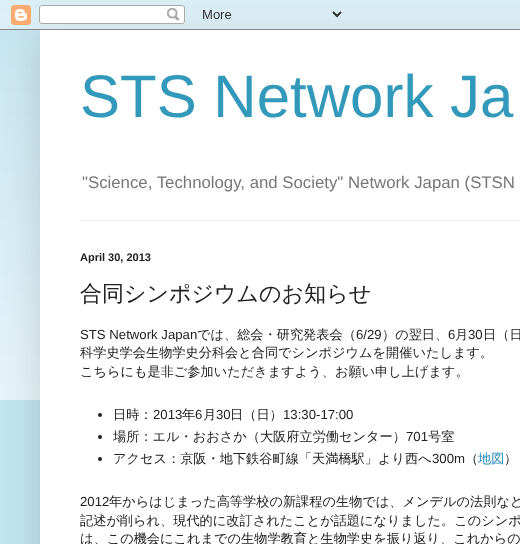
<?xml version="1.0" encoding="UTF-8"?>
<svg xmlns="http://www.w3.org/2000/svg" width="520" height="544">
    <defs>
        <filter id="blur1" x="-50%" y="-200%" width="200%" height="500%"><feGaussianBlur stdDeviation="20"/></filter>
    </defs>
    <rect width="100%" height="100%" fill="#C2E4F1"/>
    <image x="0" y="10" width="520" height="390" href="img_02.png"/>
    <rect x="40" y="30" width="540" height="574" fill="#000000" fill-opacity="0.15" filter="url(#blur1)"/>
    <image x="0" y="0" width="520" height="30" href="img_01.png"/>
    <rect x="40" y="30" width="480" height="514" fill="#FFFFFF"/>
    <text x="80" y="117" font-family="Liberation Sans" font-size="60" fill="#3399BB">STS Network Ja</text>
    <text x="82" y="188" font-family="Liberation Sans" font-size="16.8" fill="#777777">"Science, Technology, and Society" Network Japan (STSN</text>
    <rect x="80" y="220" width="440" height="1" fill="#EEEEEE"/>
    <text x="80" y="261" font-family="Liberation Sans" font-size="11" font-weight="700" fill="#222222">April 30, 2013</text>
    <text x="80" y="301" font-family="WenQuanYi Zen Hei" font-size="22" font-weight="500" fill="#222222">合同シンポジウムのお知らせ</text>
    <text x="80" y="339" font-family="Liberation Sans" font-size="13.2" fill="#222222">STS Network Japan</text>
    <text x="197" y="339" font-family="WenQuanYi Zen Hei" font-size="13.2" font-weight="500" fill="#222222">では、総会・研究発表会（</text>
    <text x="356" y="339" font-family="Liberation Sans" font-size="13.2" fill="#222222">6/29</text>
    <text x="382" y="339" font-family="WenQuanYi Zen Hei" font-size="13.2" font-weight="500" fill="#222222">）の翌日、</text>
    <text x="448" y="339" font-family="Liberation Sans" font-size="13.2" fill="#222222">6</text>
    <text x="455" y="339" font-family="WenQuanYi Zen Hei" font-size="13.2" font-weight="500" fill="#222222">月</text>
    <text x="468" y="339" font-family="Liberation Sans" font-size="13.2" fill="#222222">30</text>
    <text x="483" y="339" font-family="WenQuanYi Zen Hei" font-size="13.2" font-weight="500" fill="#222222">日（日</text>
    <text font-family="WenQuanYi Zen Hei" font-size="13.2" font-weight="500" fill="#222222">
        <tspan x="80" y="357">科学史学会生物学史分科会と合同でシンポジウムを開催いたします。</tspan>
        <tspan x="80" y="376">こちらにも是非ご参加いただきますよう、お願い申し上げます。</tspan>
    </text>
    <circle cx="100" cy="415" r="2" fill="#222222"/>
    <text x="113" y="419" font-family="WenQuanYi Zen Hei" font-size="13.2" font-weight="500" fill="#222222">日時：</text>
    <text x="153" y="419" font-family="Liberation Sans" font-size="13.2" fill="#222222">2013</text>
    <text x="182" y="419" font-family="WenQuanYi Zen Hei" font-size="13.2" font-weight="500" fill="#222222">年</text>
    <text x="195" y="419" font-family="Liberation Sans" font-size="13.2" fill="#222222">6</text>
    <text x="203" y="419" font-family="WenQuanYi Zen Hei" font-size="13.2" font-weight="500" fill="#222222">月</text>
    <text x="216" y="419" font-family="Liberation Sans" font-size="13.2" fill="#222222">30</text>
    <text x="230" y="419" font-family="WenQuanYi Zen Hei" font-size="13.2" font-weight="500" fill="#222222">日（日）</text>
    <text x="283" y="419" font-family="Liberation Sans" font-size="13.2" fill="#222222">13:30-17:00</text>
    <circle cx="100" cy="437" r="2" fill="#222222"/>
    <text x="113" y="441" font-family="WenQuanYi Zen Hei" font-size="13.2" font-weight="500" fill="#222222">場所：エル・おおさか（大阪府立労働センター）</text>
    <text x="406" y="441" font-family="Liberation Sans" font-size="13.2" fill="#222222">701</text>
    <text x="428" y="441" font-family="WenQuanYi Zen Hei" font-size="13.2" font-weight="500" fill="#222222">号室</text>
    <circle cx="100" cy="459" r="2" fill="#222222"/>
    <text x="113" y="463" font-family="WenQuanYi Zen Hei" font-size="13.2" font-weight="500" fill="#222222">アクセス：京阪・地下鉄谷町線「天満橋駅」より西へ</text>
    <text x="432" y="463" font-family="Liberation Sans" font-size="13.2" fill="#222222">300m</text>
    <text x="465" y="463" font-family="WenQuanYi Zen Hei" font-size="13.2" font-weight="500" fill="#222222">（</text>
    <text x="478" y="463" font-family="WenQuanYi Zen Hei" font-size="13.2" font-weight="500" fill="#2288BB">地図</text>
    <text x="504" y="463" font-family="WenQuanYi Zen Hei" font-size="13.2" font-weight="500" fill="#222222">）</text>
    <text x="80" y="506" font-family="Liberation Sans" font-size="13.2" fill="#222222">2012</text>
    <text x="109" y="506" font-family="WenQuanYi Zen Hei" font-size="13.2" font-weight="500" fill="#222222">年からはじまった高等学校の新課程の生物では、メンデルの法則など</text>
    <text font-family="WenQuanYi Zen Hei" font-size="13.2" font-weight="500" fill="#222222">
        <tspan x="80" y="525">記述が削られ、現代的に改訂されたことが話題になりました。このシンポ</tspan>
        <tspan x="80" y="543">は、この機会にこれまでの生物学教育と生物学史を振り返り、これからの</tspan>
    </text>
</svg>
